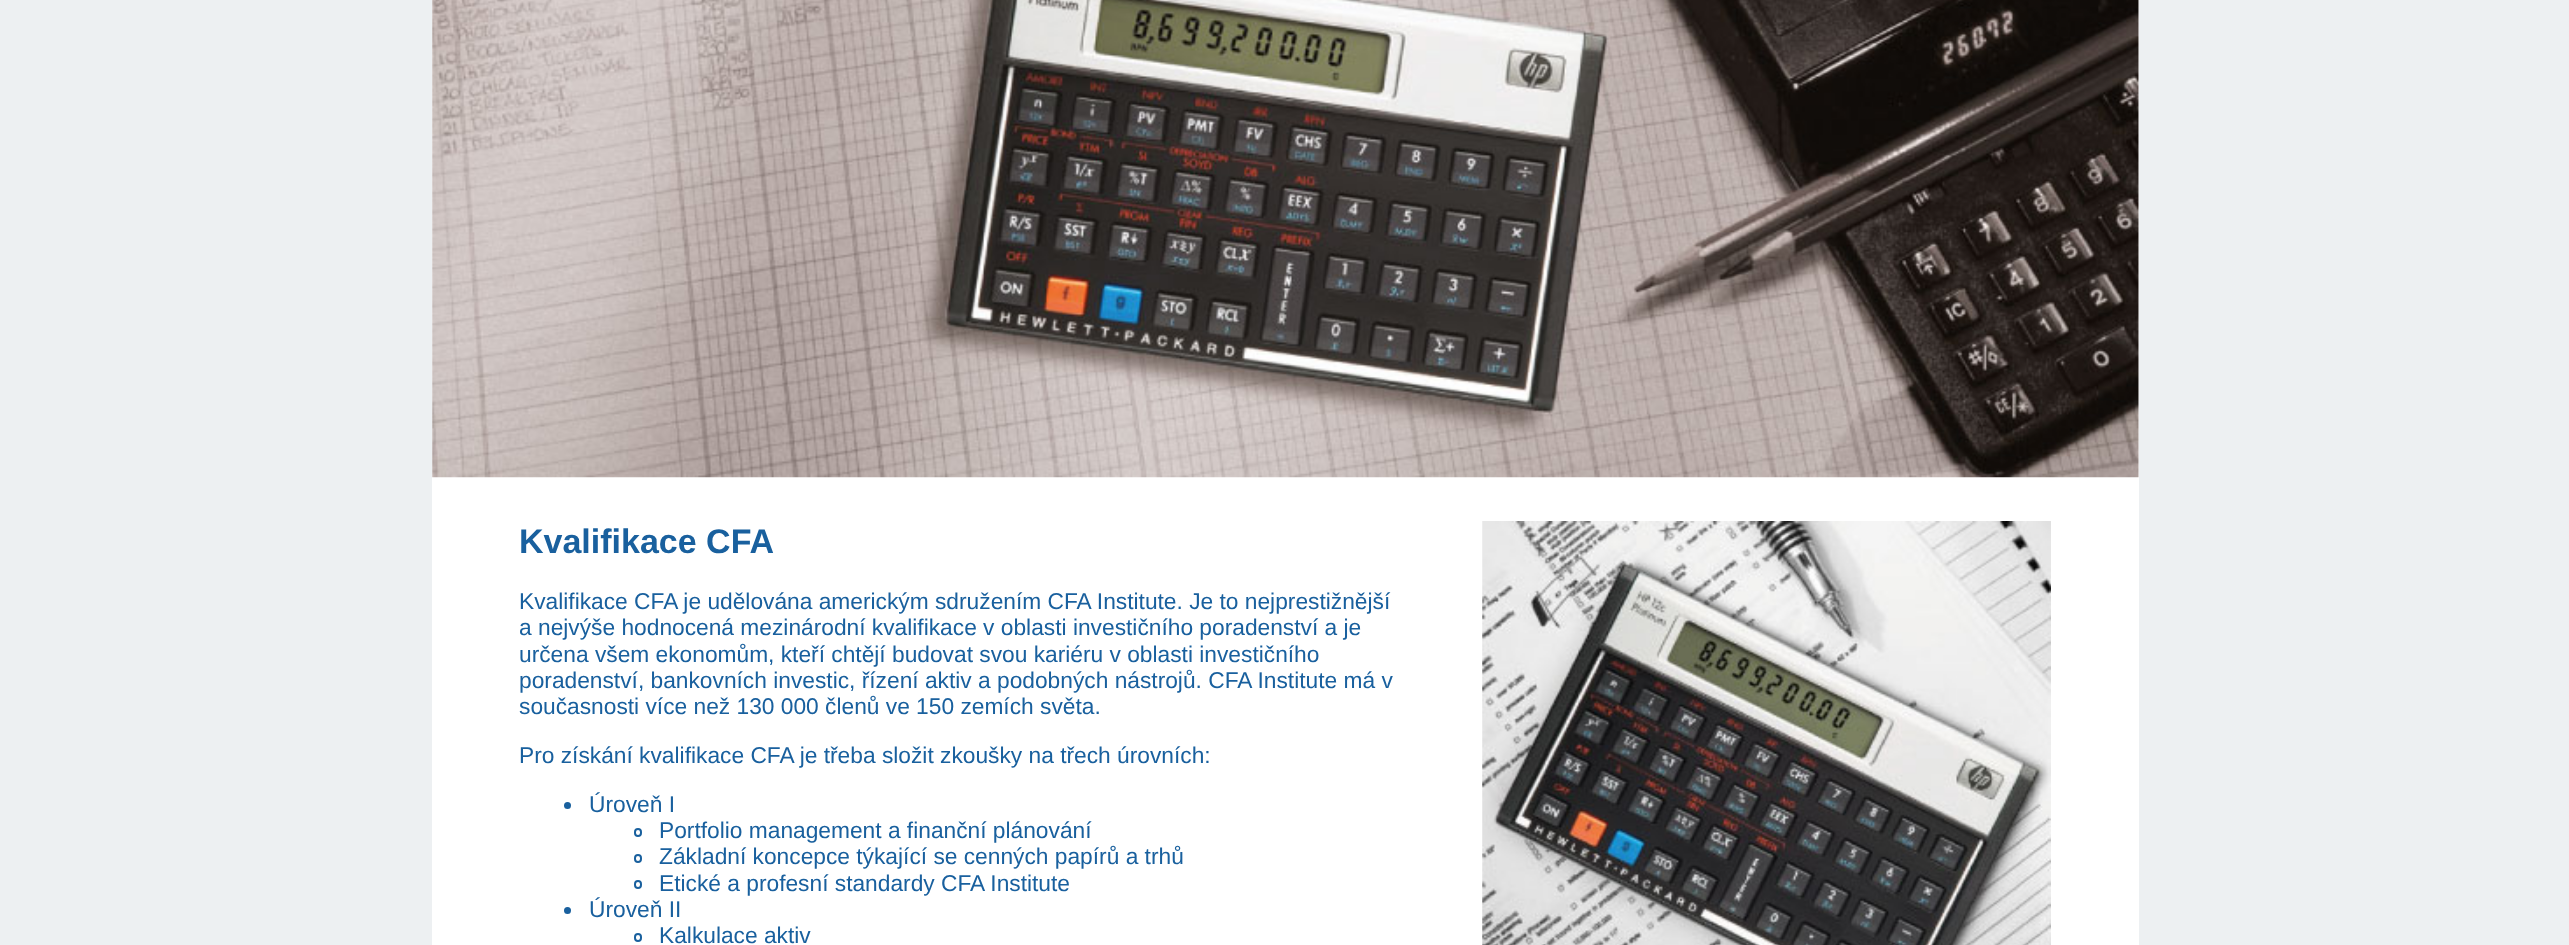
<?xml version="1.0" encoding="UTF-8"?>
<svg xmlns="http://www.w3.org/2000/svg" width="2569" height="945">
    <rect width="100%" height="100%" fill="#EDF0F2"/>
    <rect x="432" y="0" width="1707" height="945" fill="#FFFFFF"/>
    <image x="432" y="0" width="1707" height="478" href="img_01.png"/>
    <text x="519" y="553" font-family="Liberation Sans" font-size="34" font-weight="700" fill="#19609E">Kvalifikace CFA</text>
    <text font-family="Liberation Sans" font-size="22.75" fill="#19609E">
        <tspan x="519" y="609">Kvalifikace CFA je udělována americkým sdružením CFA Institute. Je to nejprestižnější</tspan>
        <tspan x="519" y="635">a nejvýše hodnocená mezinárodní kvalifikace v oblasti investičního poradenství a je</tspan>
        <tspan x="519" y="662">určena všem ekonomům, kteří chtějí budovat svou kariéru v oblasti investičního</tspan>
        <tspan x="519" y="688">poradenství, bankovních investic, řízení aktiv a podobných nástrojů. CFA Institute má v</tspan>
        <tspan x="519" y="714">současnosti více než 130 000 členů ve 150 zemích světa.</tspan>
    </text>
    <text x="519" y="763" font-family="Liberation Sans" font-size="22.75" fill="#19609E">Pro získání kvalifikace CFA je třeba složit zkoušky na třech úrovních:</text>
    <circle cx="567.5" cy="805.5" r="3.5" fill="#19609E"/>
    <text x="589" y="812" font-family="Liberation Sans" font-size="22.75" fill="#19609E">Úroveň I</text>
    <rect x="635" y="829" width="6" height="7" rx="3" fill="none" stroke="#19609E" stroke-width="2"/>
    <text x="659" y="838" font-family="Liberation Sans" font-size="22.75" fill="#19609E">Portfolio management a finanční plánování</text>
    <rect x="635" y="855" width="6" height="7" rx="3" fill="none" stroke="#19609E" stroke-width="2"/>
    <text x="659" y="864" font-family="Liberation Sans" font-size="22.75" fill="#19609E">Základní koncepce týkající se cenných papírů a trhů</text>
    <rect x="635" y="881" width="6" height="7" rx="3" fill="none" stroke="#19609E" stroke-width="2"/>
    <text x="659" y="891" font-family="Liberation Sans" font-size="22.75" fill="#19609E">Etické a profesní standardy CFA Institute</text>
    <circle cx="567.5" cy="910.5" r="3.5" fill="#19609E"/>
    <text x="589" y="917" font-family="Liberation Sans" font-size="22.75" fill="#19609E">Úroveň II</text>
    <rect x="635" y="934" width="6" height="7" rx="3" fill="none" stroke="#19609E" stroke-width="2"/>
    <text x="659" y="943" font-family="Liberation Sans" font-size="22.75" fill="#19609E">Kalkulace aktiv</text>
    <image x="1482" y="521" width="569" height="424" href="img_02.png"/>
</svg>
